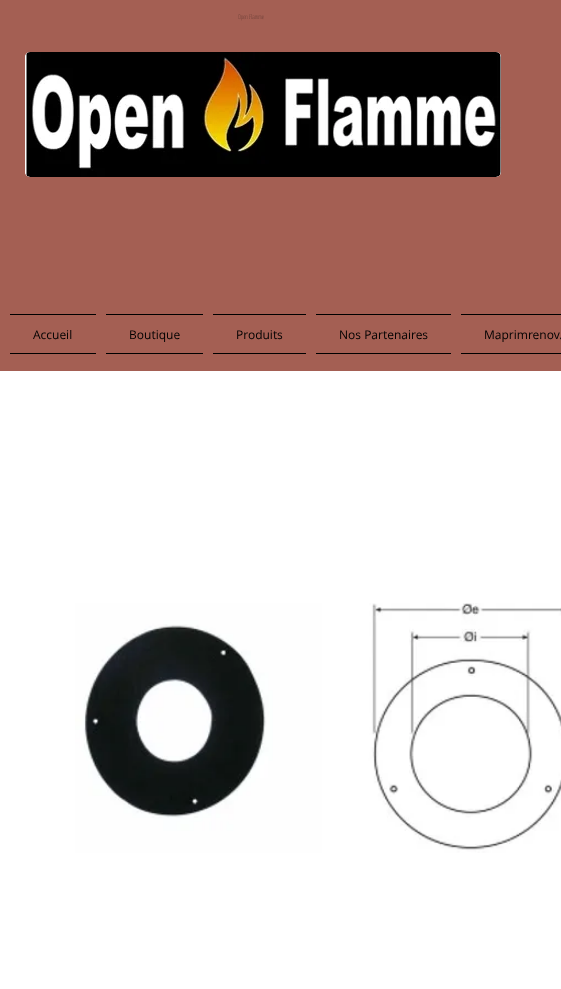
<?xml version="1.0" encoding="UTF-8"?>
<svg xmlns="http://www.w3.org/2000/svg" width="561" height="989">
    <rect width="100%" height="100%" fill="#A45F53"/>
    <image x="238" y="14" width="26" height="7" href="img_01.png"/>
    <rect x="25" y="52" width="476" height="125" rx="5" fill="#FFFFFF"/>
    <image x="25" y="52" width="476" height="125" href="img_02.png"/>
    <rect x="10" y="314" width="86" height="1" fill="#000000"/>
    <rect x="10" y="353" width="86" height="1" fill="#000000"/>
    <text x="33" y="339" font-family="Open Sans" font-size="12" fill="#000000">Accueil</text>
    <rect x="106" y="314" width="97" height="1" fill="#000000"/>
    <rect x="106" y="353" width="97" height="1" fill="#000000"/>
    <text x="129" y="339" font-family="Open Sans" font-size="12" fill="#000000">Boutique</text>
    <rect x="213" y="314" width="93" height="1" fill="#000000"/>
    <rect x="213" y="353" width="93" height="1" fill="#000000"/>
    <text x="236" y="339" font-family="Open Sans" font-size="12" fill="#000000">Produits</text>
    <rect x="316" y="314" width="135" height="1" fill="#000000"/>
    <rect x="316" y="353" width="135" height="1" fill="#000000"/>
    <text x="339" y="339" font-family="Open Sans" font-size="12" fill="#000000">Nos Partenaires</text>
    <rect x="461" y="314" width="100" height="1" fill="#000000"/>
    <rect x="461" y="353" width="100" height="1" fill="#000000"/>
    <text x="484" y="339" font-family="Open Sans" font-size="12" fill="#000000">Maprimrenov.</text>
    <rect x="0" y="371" width="561" height="618" fill="#FFFFFF"/>
    <image x="75" y="603" width="486" height="250" href="img_03.png"/>
</svg>
